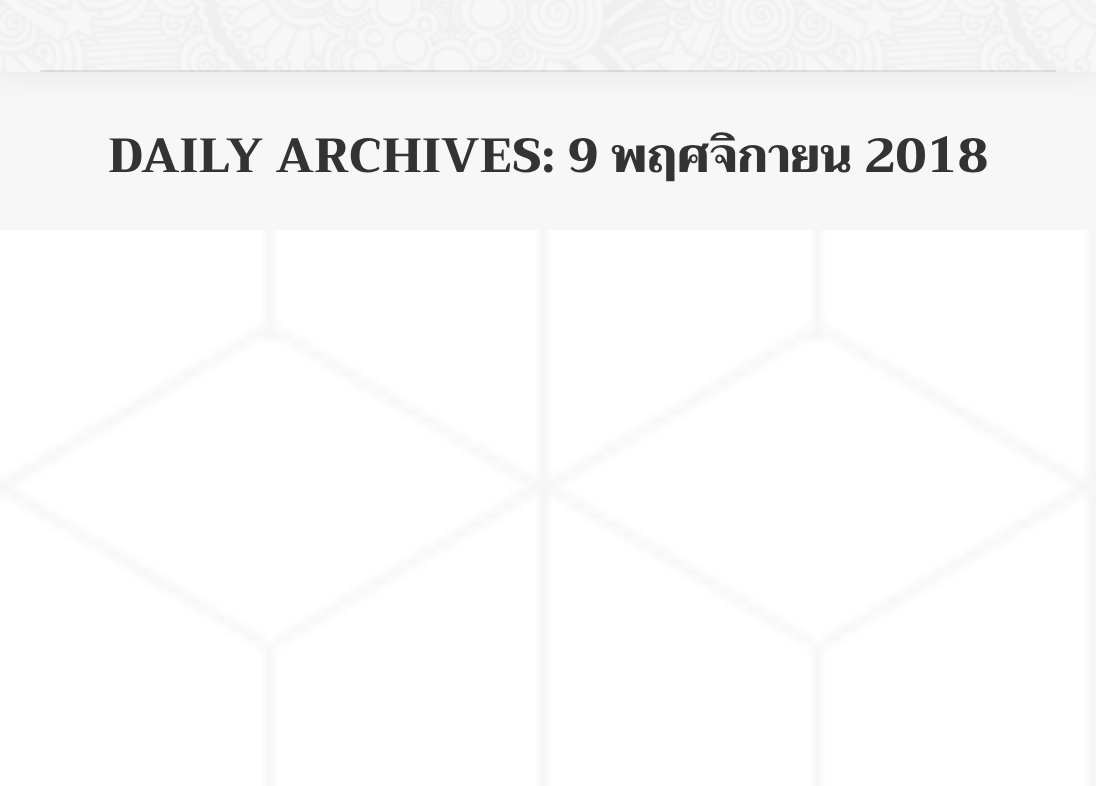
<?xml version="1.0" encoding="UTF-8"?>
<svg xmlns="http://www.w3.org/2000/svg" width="1096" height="786">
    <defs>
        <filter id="blur1" x="-50%" y="-200%" width="200%" height="500%"><feGaussianBlur stdDeviation="15"/></filter>
    </defs>
    <rect width="100%" height="100%" fill="#FFFFFF"/>
    <rect x="0" y="72" width="1096" height="158" fill="#F7F7F7"/>
    <rect x="-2" y="-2" width="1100" height="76" fill="#000000" fill-opacity="0.07" filter="url(#blur1)"/>
    <image x="0" y="0" width="1096" height="72" href="img_01.png"/>
    <rect x="40" y="70" width="1016" height="2" fill="#333333" fill-opacity="0.12"/>
    <text x="108" y="172" font-family="Trirong" font-size="48" font-weight="800" fill="#333333">DAILY ARCHIVES: 9 พฤศจิกายน 2018</text>
    <image x="0" y="230" width="1096" height="556" href="img_02.png"/>
</svg>
